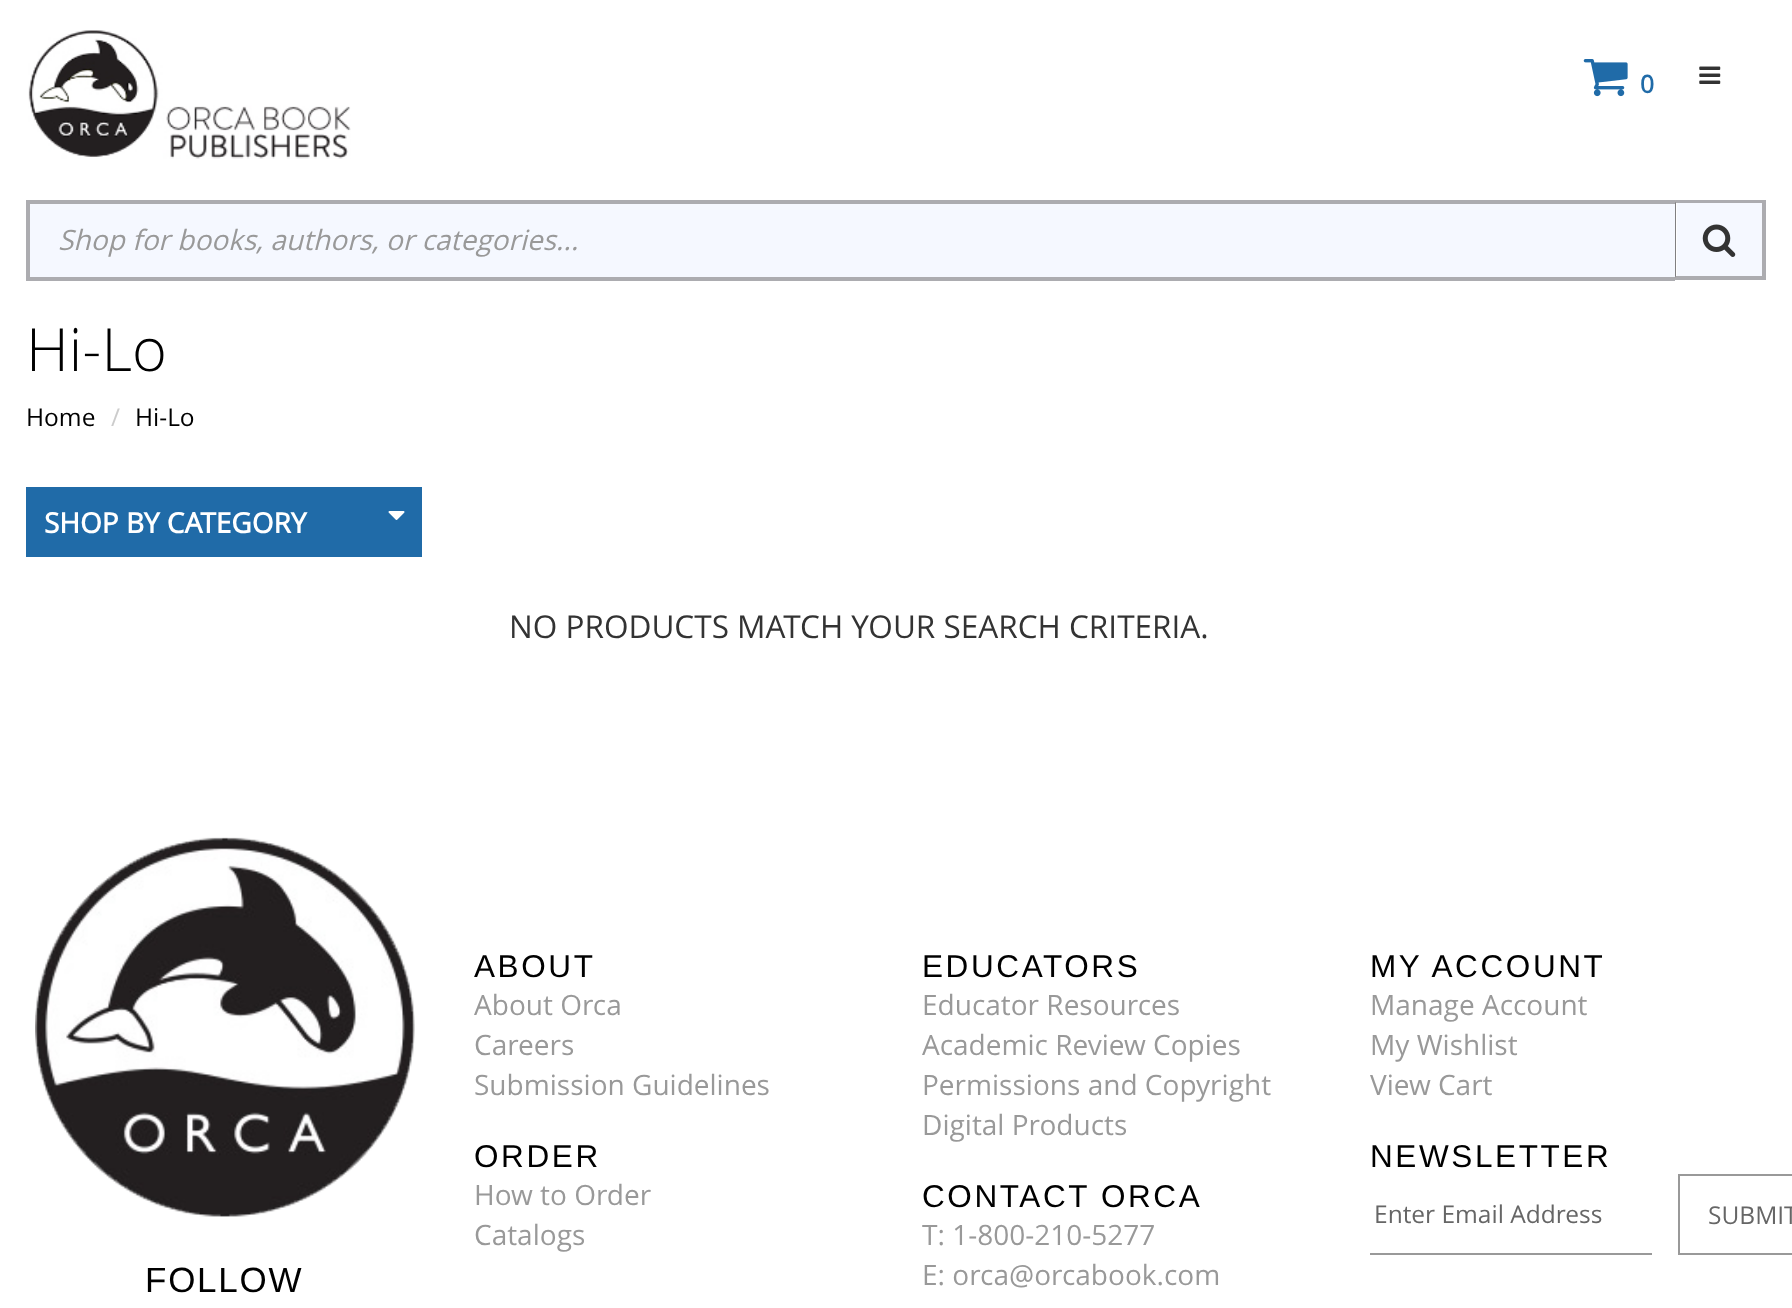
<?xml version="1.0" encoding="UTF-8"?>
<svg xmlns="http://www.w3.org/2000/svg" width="1792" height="1308">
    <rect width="100%" height="100%" fill="#FFFFFF"/>
    <image x="28" y="30" width="323" height="129" href="img_01.png"/>
    <image x="1583" y="59" width="45" height="38" href="img_02.png"/>
    <text x="1640" y="93" font-family="Open Sans" font-size="24.5" font-weight="700" fill="#206BA8">0</text>
    <image x="1699" y="66" width="22" height="18" href="img_03.png"/>
    <rect x="30" y="204" width="1645" height="73" fill="#F5F8FF"/>
    <rect x="26" y="200" width="1649" height="4" fill="#ACACB0"/>
    <rect x="26" y="277" width="1649" height="4" fill="#ACACB0"/>
    <rect x="26" y="200" width="4" height="80" fill="#ACACB0"/>
    <text x="58" y="250" font-family="Open Sans" font-size="28" font-style="italic" fill="#999999">Shop for books, authors, or categories...</text>
    <rect x="1677" y="203" width="85" height="73" fill="#F5F8FF"/>
    <path d="M 1675 200 H 1766 L 1762 203 H 1676 Z" fill="#ACACB0"/>
    <rect x="1762" y="200" width="4" height="80" fill="#ACACB0"/>
    <path d="M 1766 280 H 1675 L 1676 276 H 1762 Z" fill="#ACACB0"/>
    <path d="M 1675 280 V 200 L 1676 203 V 276 Z" fill="#807F81"/>
    <image x="1702" y="224" width="34" height="33" href="img_04.png"/>
    <text x="26" y="371" font-family="Open Sans" font-size="59.5" font-weight="300" fill="#000000">Hi-Lo</text>
    <text x="26" y="426" font-family="Open Sans" font-size="24.5" fill="#000000">Home</text>
    <text x="111" y="426" font-family="Open Sans" font-size="24.5" fill="#CCCCCC">/</text>
    <text x="135" y="426" font-family="Open Sans" font-size="24.5" fill="#000000">Hi-Lo</text>
    <rect x="26" y="487" width="396" height="70" fill="#206BA8"/>
    <text x="44" y="533" font-family="Open Sans" font-size="28" font-weight="700" fill="#FFFFFF">SHOP BY CATEGORY</text>
    <image x="388" y="511" width="17" height="9" href="img_05.png"/>
    <text x="509" y="638" font-family="Open Sans" font-size="31.5" fill="#333333">NO PRODUCTS MATCH YOUR SEARCH CRITERIA.</text>
    <text x="474" y="977" font-family="Liberation Sans" font-size="31.5" letter-spacing="2.6" fill="#000000">ABOUT</text>
    <text font-family="Open Sans" font-size="28" fill="#999999">
        <tspan x="474" y="1015">About Orca</tspan>
        <tspan x="474" y="1055">Careers</tspan>
        <tspan x="474" y="1095">Submission Guidelines</tspan>
    </text>
    <text x="474" y="1167" font-family="Liberation Sans" font-size="31.5" letter-spacing="2.6" fill="#000000">ORDER</text>
    <text font-family="Open Sans" font-size="28" fill="#999999">
        <tspan x="474" y="1205">How to Order</tspan>
        <tspan x="474" y="1245">Catalogs</tspan>
    </text>
    <text x="922" y="977" font-family="Liberation Sans" font-size="31.5" letter-spacing="2.6" fill="#000000">EDUCATORS</text>
    <text font-family="Open Sans" font-size="28" fill="#999999">
        <tspan x="922" y="1015">Educator Resources</tspan>
        <tspan x="922" y="1055">Academic Review Copies</tspan>
        <tspan x="922" y="1095">Permissions and Copyright</tspan>
        <tspan x="922" y="1135">Digital Products</tspan>
    </text>
    <text x="922" y="1207" font-family="Liberation Sans" font-size="31.5" letter-spacing="2.6" fill="#000000">CONTACT ORCA</text>
    <text font-family="Open Sans" font-size="28" fill="#999999">
        <tspan x="922" y="1245">T: 1-800-210-5277</tspan>
        <tspan x="922" y="1285">E: orca@orcabook.com</tspan>
    </text>
    <text x="1370" y="977" font-family="Liberation Sans" font-size="31.5" letter-spacing="2.6" fill="#000000">MY ACCOUNT</text>
    <text font-family="Open Sans" font-size="28" fill="#999999">
        <tspan x="1370" y="1015">Manage Account</tspan>
        <tspan x="1370" y="1055">My Wishlist</tspan>
        <tspan x="1370" y="1095">View Cart</tspan>
    </text>
    <text x="1370" y="1167" font-family="Liberation Sans" font-size="31.5" letter-spacing="2.6" fill="#000000">NEWSLETTER</text>
    <rect x="1370" y="1253" width="282" height="2" fill="#999999"/>
    <text x="1374" y="1223" font-family="Open Sans" font-size="24.5" fill="#666666">Enter Email Address</text>
    <rect x="1679" y="1175" width="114" height="79" fill="none" stroke="#999999" stroke-width="2"/>
    <text x="1708" y="1224" font-family="Open Sans" font-size="24.5" fill="#666666">SUBMIT</text>
    <image x="35" y="837" width="380" height="380" href="img_06.png"/>
    <text x="145" y="1292" font-family="Liberation Sans" font-size="35" letter-spacing="1.75" fill="#000000">FOLLOW</text>
</svg>
